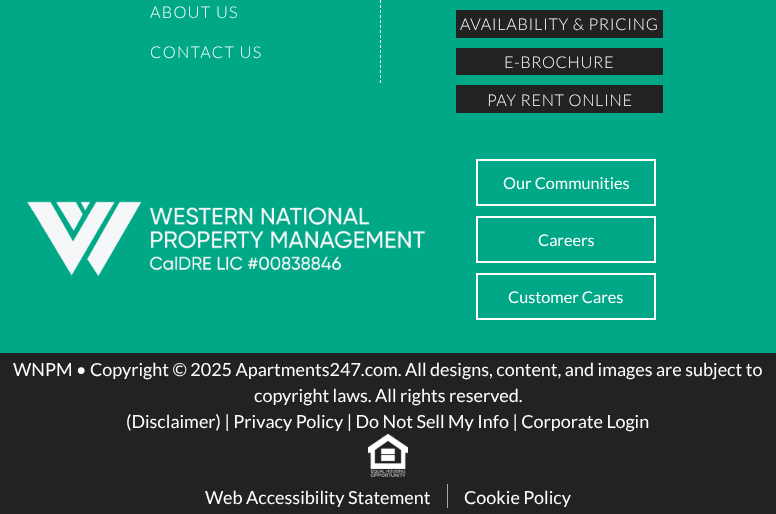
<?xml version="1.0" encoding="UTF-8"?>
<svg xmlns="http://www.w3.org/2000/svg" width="776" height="514">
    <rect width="100%" height="100%" fill="#00A887"/>
    <path d="M 380.5 -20 V 83" fill="none" stroke="#FFFFFF" stroke-dasharray="3 2"/>
    <text x="150" y="18" font-family="Lato" font-size="16.25" font-weight="300" letter-spacing="1.25" fill="#FFFFFF">ABOUT US</text>
    <text x="150" y="58" font-family="Lato" font-size="16.25" font-weight="300" letter-spacing="1.25" fill="#FFFFFF">CONTACT US</text>
    <rect x="456" y="10" width="207" height="28" fill="#222222"/>
    <text x="460" y="30" font-family="Lato" font-size="16.25" font-weight="300" letter-spacing="0.65" fill="#FFFFFF">AVAILABILITY &amp; PRICING</text>
    <rect x="456" y="48" width="207" height="27" fill="#222222"/>
    <text x="504" y="68" font-family="Lato" font-size="16.25" font-weight="300" letter-spacing="0.65" fill="#FFFFFF">E-BROCHURE</text>
    <rect x="456" y="85" width="207" height="28" fill="#222222"/>
    <text x="487" y="106" font-family="Lato" font-size="16.25" font-weight="300" letter-spacing="0.65" fill="#FFFFFF">PAY RENT ONLINE</text>
    <image x="27" y="201" width="399" height="76" href="img_01.png"/>
    <rect x="477" y="160" width="178" height="45" fill="none" stroke="#FFFFFF" stroke-width="2"/>
    <text x="503" y="189" font-family="Lato" font-size="16.25" fill="#FFFFFF">Our Communities</text>
    <rect x="477" y="217" width="178" height="45" fill="none" stroke="#FFFFFF" stroke-width="2"/>
    <text x="538" y="246" font-family="Lato" font-size="16.25" fill="#FFFFFF">Careers</text>
    <rect x="477" y="274" width="178" height="45" fill="none" stroke="#FFFFFF" stroke-width="2"/>
    <text x="508" y="303" font-family="Lato" font-size="16.25" fill="#FFFFFF">Customer Cares</text>
    <rect x="0" y="353" width="776" height="161" fill="#222222"/>
    <text x="13" y="376" font-family="Lato" font-size="18" fill="#FFFFFF">WNPM • Copyright © 2025 Apartments247.com. All designs, content, and images are subject to</text>
    <text x="254" y="402" font-family="Lato" font-size="18" fill="#FFFFFF">copyright laws. All rights reserved.</text>
    <text x="126" y="428" font-family="Lato" font-size="18" fill="#FFFFFF">(Disclaimer) | Privacy Policy | Do Not Sell My Info | Corporate Login</text>
    <image x="368" y="434" width="40" height="43" href="img_02.png"/>
    <text x="205" y="504" font-family="Lato" font-size="18" fill="#FFFFFF">Web Accessibility Statement</text>
    <rect x="447" y="484" width="1" height="24" fill="#A7A7A7"/>
    <text x="464" y="504" font-family="Lato" font-size="18" fill="#FFFFFF">Cookie Policy</text>
</svg>
